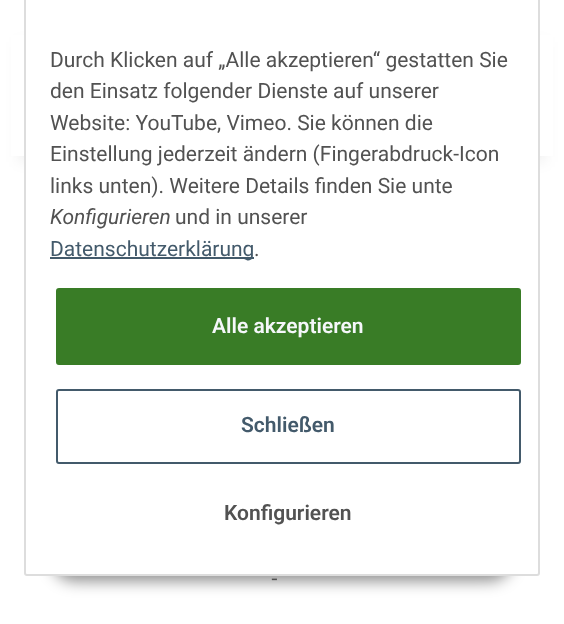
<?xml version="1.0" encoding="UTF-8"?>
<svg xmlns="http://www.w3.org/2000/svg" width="564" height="624">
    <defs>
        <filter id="blur1" x="-50%" y="-200%" width="200%" height="500%"><feGaussianBlur stdDeviation="7"/></filter>
        <filter id="blur2" x="-50%" y="-200%" width="200%" height="500%"><feGaussianBlur stdDeviation="7.5"/></filter>
    </defs>
    <rect width="100%" height="100%" fill="#FFFFFF"/>
    <rect x="18" y="42" width="528" height="120" fill="#000000" fill-opacity="0.06" filter="url(#blur1)"/>
    <rect x="11" y="35" width="542" height="121" fill="#FFFFFF"/>
    <rect x="51" y="533" width="462" height="48" rx="24" fill="#000000" fill-opacity="0.45" filter="url(#blur2)"/>
    <rect x="25" y="-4" width="514" height="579" rx="2" fill="#FFFFFF" stroke="#DDDDDD" stroke-width="2"/>
    <text font-family="Roboto" font-size="21" fill="#525252">
        <tspan x="50" y="67">Durch Klicken auf „Alle akzeptieren“ gestatten Sie</tspan>
        <tspan x="50" y="98">den Einsatz folgender Dienste auf unserer</tspan>
        <tspan x="50" y="130">Website: YouTube, Vimeo. Sie können die</tspan>
        <tspan x="50" y="161">Einstellung jederzeit ändern (Fingerabdruck-Icon</tspan>
        <tspan x="50" y="193">links unten). Weitere Details finden Sie unte</tspan>
    </text>
    <text x="50" y="224" font-family="Roboto" font-size="21" font-style="italic" fill="#525252">Konfigurieren</text>
    <text x="175" y="224" font-family="Roboto" font-size="21" fill="#525252">und in unserer</text>
    <rect x="50" y="257" width="204" height="2" fill="#435A6B"/>
    <text x="50" y="256" font-family="Roboto" font-size="21" fill="#435A6B">Datenschutzerklärung</text>
    <text x="254" y="256" font-family="Roboto" font-size="21" fill="#525252">.</text>
    <rect x="57" y="289" width="463" height="75" rx="2" fill="#397C26" stroke="#397C26" stroke-width="2"/>
    <text x="212" y="333" font-family="Roboto" font-size="21" font-weight="600" fill="#F5F7FA">Alle akzeptieren</text>
    <rect x="57" y="390" width="463" height="73" rx="2" fill="none" stroke="#435A6B" stroke-width="2"/>
    <text x="241" y="432" font-family="Roboto" font-size="21" font-weight="600" fill="#435A6B">Schließen</text>
    <text x="224" y="520" font-family="Roboto" font-size="21" font-weight="600" fill="#525252">Konfigurieren</text>
    <text x="271" y="585" font-family="Open Sans" font-size="21" fill="#525252">-</text>
</svg>
